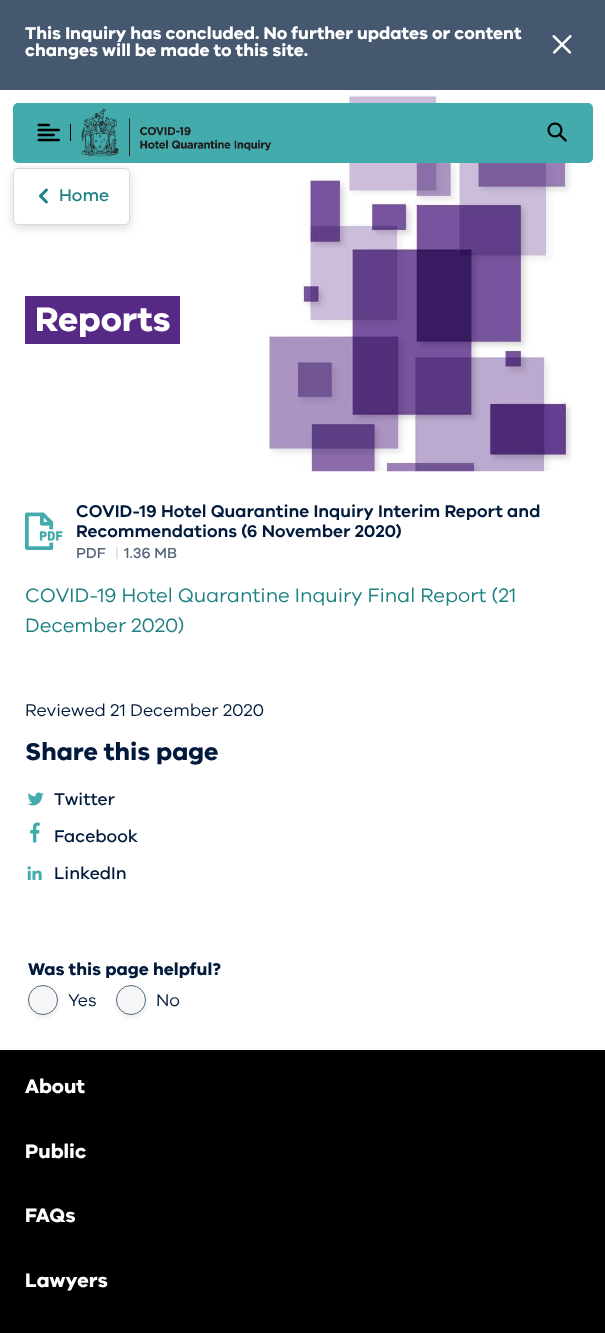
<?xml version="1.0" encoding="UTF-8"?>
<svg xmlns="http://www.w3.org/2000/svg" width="605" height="1333">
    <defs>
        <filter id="blur1" x="-50%" y="-200%" width="200%" height="500%"><feGaussianBlur stdDeviation="5"/></filter>
        <filter id="blur2" x="-50%" y="-200%" width="200%" height="500%"><feGaussianBlur stdDeviation="2.5"/></filter>
    </defs>
    <rect width="100%" height="100%" fill="#FFFFFF"/>
    <rect x="0" y="0" width="605" height="90" fill="#465870"/>
    <text font-family="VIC" font-size="17.5" font-weight="700" fill="#FFFFFF">
        <tspan x="25" y="39">This Inquiry has concluded. No further updates or content</tspan>
        <tspan x="25" y="56">changes will be made to this site.</tspan>
    </text>
    <image x="552" y="35" width="20" height="19" href="img_01.png"/>
    <rect x="13" y="170" width="117" height="58" rx="5" fill="#000000" fill-opacity="0.14" filter="url(#blur1)"/>
    <image x="262" y="95" width="310" height="377" href="img_06.png"/>
    <rect x="13" y="103" width="580" height="60" rx="5" fill="#44ABAC"/>
    <image x="37" y="123" width="23" height="19" href="img_02.png"/>
    <rect x="70" y="124" width="1" height="17" fill="#000000"/>
    <image x="81" y="108" width="191" height="49" href="img_03.png"/>
    <image x="547" y="122" width="20" height="20" href="img_04.png"/>
    <rect x="13.5" y="168.5" width="116" height="56" rx="4.5" fill="#FFFFFF" stroke="#D7DBE0"/>
    <image x="39" y="188" width="9" height="16" href="img_05.png"/>
    <text x="59" y="201" font-family="VIC" font-size="17.5" font-weight="500" fill="#1E8182">Home</text>
    <rect x="25" y="296" width="155" height="48" fill="#572987"/>
    <text x="35" y="331" font-family="VIC" font-size="35" font-weight="700" fill="#FFFFFF">Reports</text>
    <image x="25" y="512" width="38" height="38" href="img_07.png"/>
    <text font-family="VIC" font-size="17.5" font-weight="600" fill="#011A3C">
        <tspan x="76" y="517">COVID-19 Hotel Quarantine Inquiry Interim Report and</tspan>
        <tspan x="76" y="537">Recommendations (6 November 2020)</tspan>
    </text>
    <text x="76" y="558" font-family="VIC" font-size="15" font-weight="500" fill="#53647A">PDF</text>
    <text x="115" y="558" font-family="VIC" font-size="15" font-weight="500" fill="#DADEE2">|</text>
    <text x="124" y="558" font-family="VIC" font-size="15" font-weight="500" fill="#53647A">1.36 MB</text>
    <text font-family="VIC" font-size="20" fill="#1E8182">
        <tspan x="25" y="602">COVID-19 Hotel Quarantine Inquiry Final Report (21</tspan>
        <tspan x="25" y="632">December 2020)</tspan>
    </text>
    <text x="25" y="716" font-family="VIC" font-size="17.5" fill="#011A3C">Reviewed 21 December 2020</text>
    <text x="25" y="760" font-family="VIC" font-size="25" font-weight="700" fill="#011A3C">Share this page</text>
    <image x="27" y="792" width="17" height="14" href="img_08.png"/>
    <text x="54" y="805" font-family="VIC" font-size="17.5" font-weight="500" fill="#011A3C">Twitter</text>
    <image x="30" y="822" width="10" height="21" href="img_09.png"/>
    <text x="54" y="842" font-family="VIC" font-size="17.5" font-weight="500" fill="#011A3C">Facebook</text>
    <image x="27" y="866" width="15" height="14" href="img_10.png"/>
    <text x="54" y="879" font-family="VIC" font-size="17.5" font-weight="500" fill="#011A3C">LinkedIn</text>
    <text x="28" y="975" font-family="VIC" font-size="17.5" font-weight="700" fill="#011A3C">Was this page helpful?</text>
    <rect x="28" y="988" width="30" height="30" rx="15" fill="#000000" fill-opacity="0.08" filter="url(#blur2)"/>
    <circle cx="43" cy="1000" r="14.5" fill="#F6F6F9" stroke="#546A7C"/>
    <text x="68" y="1006" font-family="VIC" font-size="17.5" fill="#011A3C">Yes</text>
    <rect x="116" y="988" width="30" height="30" rx="15" fill="#000000" fill-opacity="0.08" filter="url(#blur2)"/>
    <circle cx="131" cy="1000" r="14.5" fill="#F6F6F9" stroke="#546A7C"/>
    <text x="156" y="1006" font-family="VIC" font-size="17.5" fill="#011A3C">No</text>
    <rect x="0" y="1050" width="605" height="283" fill="#000000"/>
    <text x="25" y="1093" font-family="VIC" font-size="20" font-weight="700" fill="#FFFFFF">About</text>
    <text x="25" y="1158" font-family="VIC" font-size="20" font-weight="700" fill="#FFFFFF">Public</text>
    <text x="25" y="1222" font-family="VIC" font-size="20" font-weight="700" fill="#FFFFFF">FAQs</text>
    <text x="25" y="1287" font-family="VIC" font-size="20" font-weight="700" fill="#FFFFFF">Lawyers</text>
</svg>
